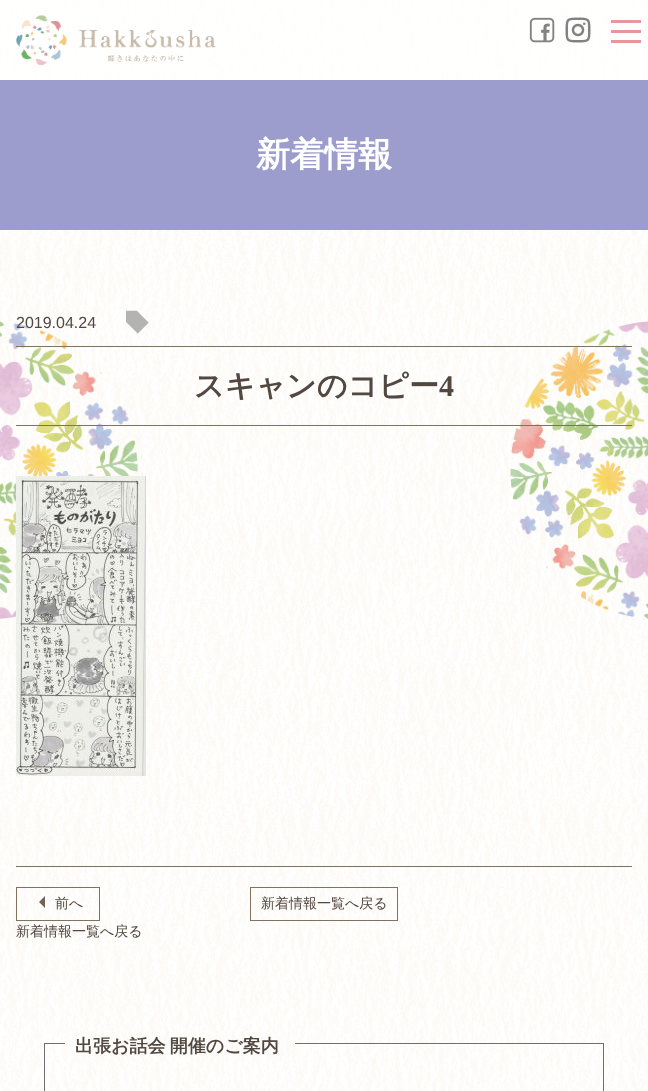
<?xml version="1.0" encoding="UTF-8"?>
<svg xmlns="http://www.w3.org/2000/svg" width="648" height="1091">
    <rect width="100%" height="100%" fill="#FFFFFF"/>
    <image x="0" y="0" width="648" height="1091" href="img_01.png"/>
    <rect x="0" y="0" width="648" height="80" fill="#FFFFFF" fill-opacity="0.8"/>
    <image x="16" y="15" width="200" height="51" href="img_02.png"/>
    <image x="529" y="17" width="26" height="26" href="img_03.png"/>
    <image x="565" y="17" width="26" height="26" href="img_04.png"/>
    <rect x="611" y="30" width="30" height="3" fill="#E7969A"/>
    <rect x="611" y="20" width="30" height="3" fill="#E7969A"/>
    <rect x="611" y="40" width="30" height="3" fill="#E7969A"/>
    <rect x="0" y="80" width="648" height="150" fill="#9C9DCD"/>
    <text x="256" y="166" font-family="WenQuanYi Zen Hei" font-size="34" font-weight="700" fill="#FFFFFF">新着情報</text>
    <image x="0" y="321" width="648" height="298" href="img_05.png"/>
    <text x="16" y="328" font-family="Liberation Sans" font-size="16" fill="#534741">2019.04.24</text>
    <image x="126" y="310" width="23" height="24" href="img_06.png"/>
    <rect x="16" y="346" width="616" height="1" fill="#80735E"/>
    <rect x="16" y="425" width="616" height="1" fill="#80735E"/>
    <text x="194" y="396" font-family="WenQuanYi Zen Hei" font-size="30" font-weight="700" fill="#534741">スキャンのコピー</text>
    <text x="439" y="396" font-family="Liberation Serif" font-size="30" font-weight="700" fill="#534741">4</text>
    <image x="16" y="476" width="130" height="300" href="img_07.png"/>
    <rect x="16" y="866" width="616" height="1" fill="#80735E"/>
    <rect x="16.5" y="887.5" width="83" height="33" fill="none" stroke="#80735E"/>
    <path d="M 45 896 V 908 L 39 902 Z" fill="#736357"/>
    <text x="55" y="908" font-family="WenQuanYi Zen Hei" font-size="14" font-weight="500" fill="#534741">前へ</text>
    <rect x="250.5" y="887.5" width="147" height="33" fill="none" stroke="#80735E"/>
    <text x="261" y="908" font-family="WenQuanYi Zen Hei" font-size="14" font-weight="500" fill="#534741">新着情報一覧へ戻る</text>
    <text x="16" y="936" font-family="WenQuanYi Zen Hei" font-size="14" font-weight="500" fill="#534741">新着情報一覧へ戻る</text>
    <rect x="44.5" y="1043.5" width="559" height="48" fill="none" stroke="#707070"/>
    <image x="65" y="1031" width="230" height="31" href="img_08.png"/>
    <text x="75" y="1052" word-spacing="-1" font-family="WenQuanYi Zen Hei" font-size="18" font-weight="700" fill="#534741">出張お話会 開催のご案内</text>
</svg>
